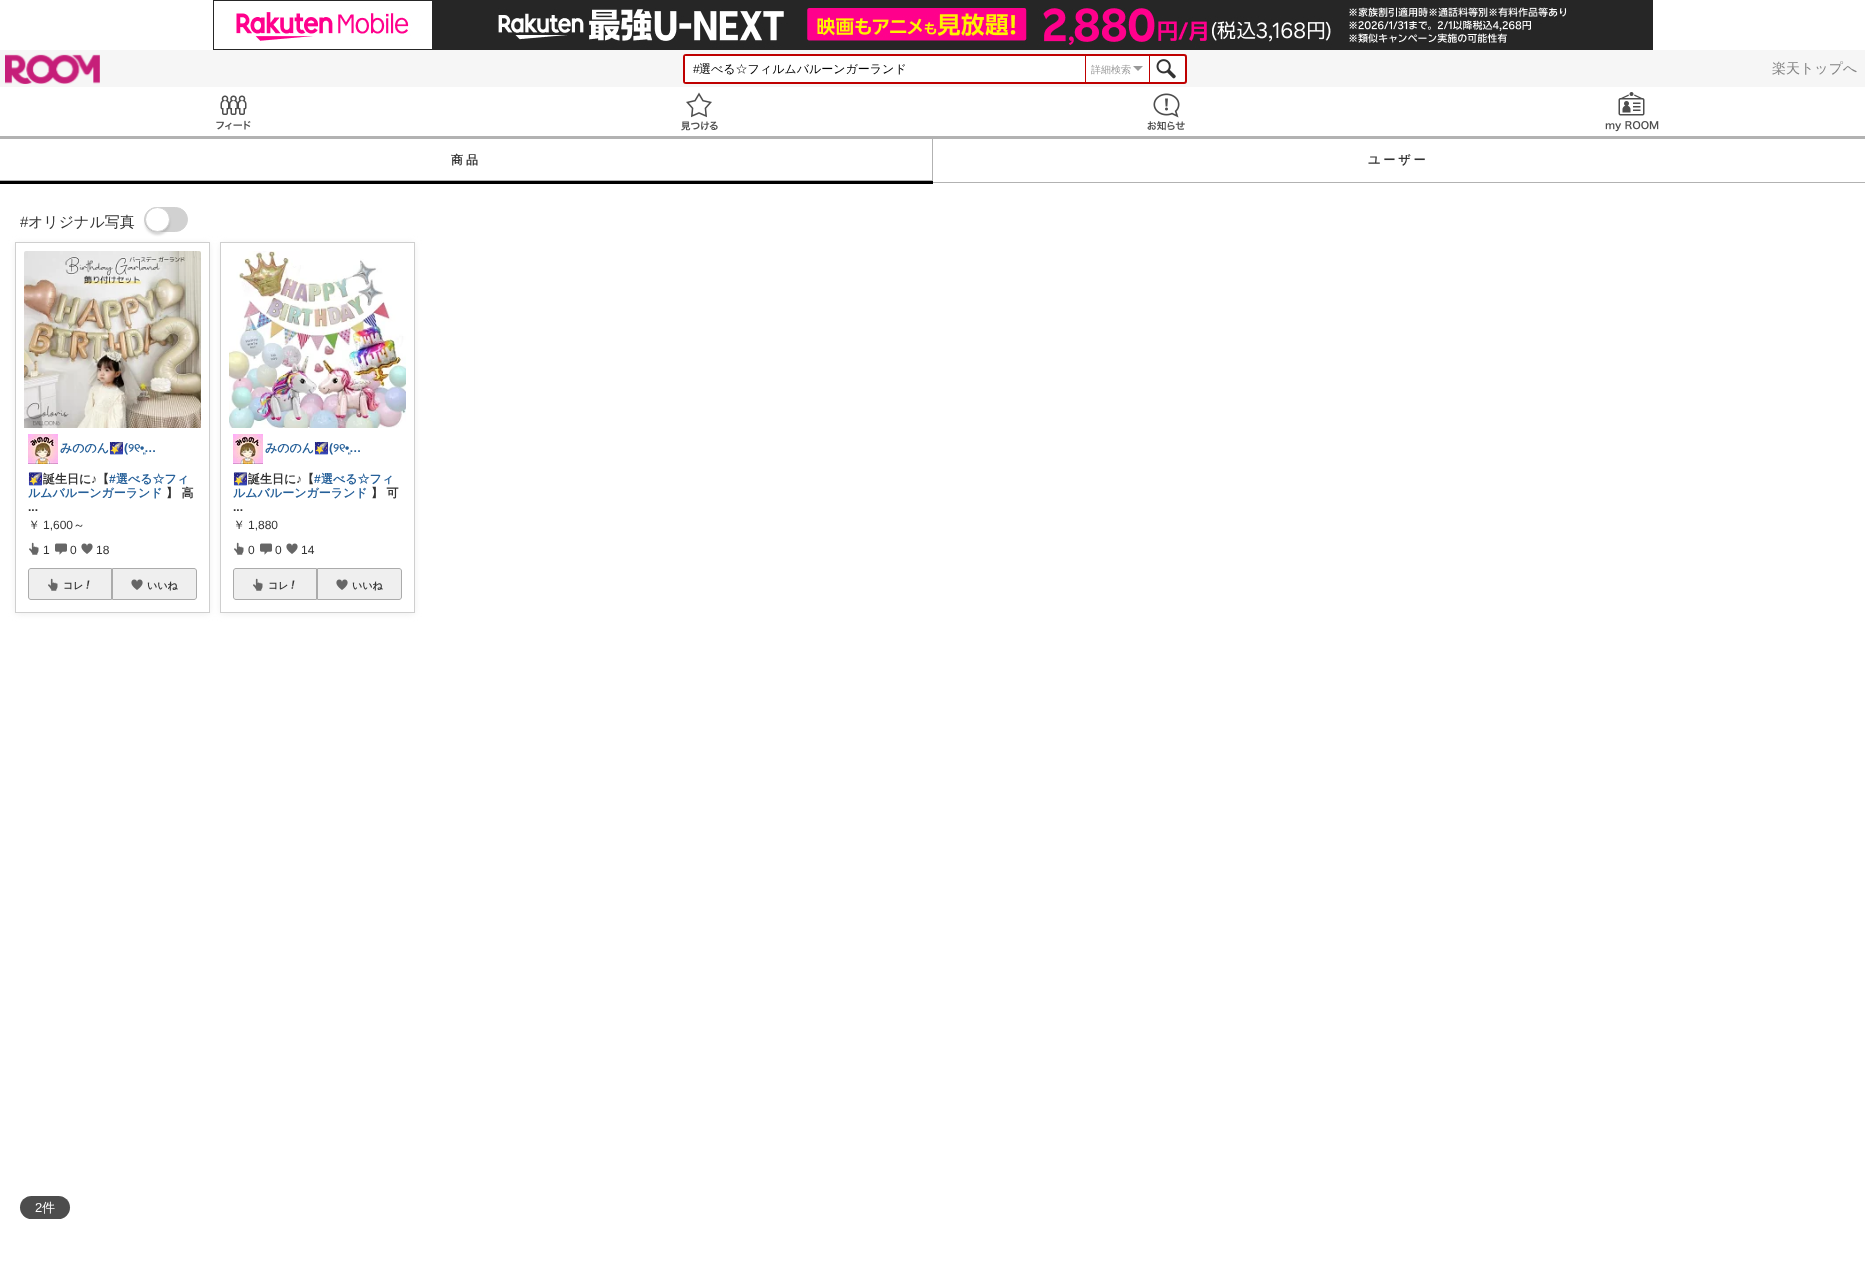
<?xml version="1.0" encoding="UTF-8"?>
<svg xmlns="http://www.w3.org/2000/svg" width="1865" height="1273">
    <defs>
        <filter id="blur1" x="-50%" y="-200%" width="200%" height="500%"><feGaussianBlur stdDeviation="1"/></filter>
        <filter id="blur2" x="-50%" y="-200%" width="200%" height="500%"><feGaussianBlur stdDeviation="3"/></filter>
        <clipPath id="clip1"><rect x="60" y="442" width="100" height="13"/></clipPath>
        <clipPath id="clip2"><rect x="265" y="442" width="100" height="13"/></clipPath>
    </defs>
    <rect width="100%" height="100%" fill="#FFFFFF"/>
    <image x="213" y="0" width="1440" height="50" href="img_01.png"/>
    <rect x="0" y="50" width="1865" height="37" fill="#F6F6F6"/>
    <rect x="684" y="55" width="502" height="28" rx="2" fill="#FFFFFF" stroke="#BF0000" stroke-width="2"/>
    <rect x="685" y="56" width="1" height="26" fill="#FFFFFF"/>
    <text x="693" y="73" font-family="Liberation Sans" font-size="12" fill="#000000">#</text>
    <text x="699" y="73" font-family="WenQuanYi Zen Hei" font-size="12" font-weight="500" fill="#000000">選べる☆フィルムバルーンガーランド</text>
    <rect x="1085" y="56" width="1" height="26" fill="#BF0000"/>
    <text x="1091" y="73" font-family="WenQuanYi Zen Hei" font-size="10" font-weight="500" fill="#999999">詳細検索</text>
    <path d="M 1133 66 H 1143 L 1138 71 Z" fill="#999999"/>
    <rect x="1149" y="56" width="1" height="26" fill="#BF0000"/>
    <image x="1156" y="59" width="20" height="20" href="img_02.png"/>
    <image x="5" y="54" width="95" height="30" href="img_03.png"/>
    <text x="1772" y="73" font-family="WenQuanYi Zen Hei" font-size="14" font-weight="500" fill="#848484">楽天トップへ</text>
    <image x="681" y="92" width="37" height="39" href="img_04.png"/>
    <rect x="933" y="136" width="932" height="3" fill="#B2B2B2"/>
    <image x="1605" y="92" width="54" height="40" href="img_05.png"/>
    <rect x="0" y="136" width="933" height="3" fill="#B2B2B2"/>
    <image x="216" y="95" width="35" height="35" href="img_06.png"/>
    <image x="1147" y="93" width="38" height="38" href="img_07.png"/>
    <rect x="0" y="181" width="933" height="3" fill="#000000"/>
    <rect x="932" y="139" width="1" height="42" fill="#B2B2B2"/>
    <rect x="0" y="180" width="933" height="1" fill="#B2B2B2"/>
    <text x="451" y="164" font-family="WenQuanYi Zen Hei" font-size="12" font-weight="700" letter-spacing="3" fill="#333333">商品</text>
    <rect x="933" y="182" width="932" height="1" fill="#B2B2B2"/>
    <text x="1368" y="164" font-family="WenQuanYi Zen Hei" font-size="12" font-weight="700" letter-spacing="3" fill="#333333">ユーザー</text>
    <text x="20" y="227" font-family="Liberation Sans" font-size="15" fill="#333333">#</text>
    <text x="28" y="227" font-family="WenQuanYi Zen Hei" font-size="15" font-weight="500" fill="#333333">オリジナル写真</text>
    <rect x="144.5" y="207.5" width="43" height="24" rx="12" fill="#D1D1D1" stroke="#D1D1D1"/>
    <rect x="145" y="210" width="25" height="25" rx="12.5" fill="#999999" fill-opacity="0.4" filter="url(#blur1)"/>
    <circle cx="157.5" cy="219.5" r="12" fill="#FFFFFF" stroke="#D1D1D1"/>
    <rect x="15" y="243" width="195" height="371" rx="3" fill="#EFEFEF" filter="url(#blur2)"/>
    <rect x="15.5" y="242.5" width="194" height="370" fill="#FFFFFF" stroke="#CFCFCF"/>
    <image x="24" y="251" width="177" height="177" href="img_08.png"/>
    <image x="28" y="434" width="30" height="30" href="img_09.png"/>
    <text x="60" y="452" font-family="WenQuanYi Zen Hei" font-size="12" font-weight="700" fill="#266099">みののん</text>
    <g clip-path="url(#clip1)">
        <text x="109" y="452" font-family="Noto Color Emoji" font-size="12" font-weight="700" fill="#266099">🌠</text>
    </g>
    <text x="124" y="452" font-family="Liberation Sans" font-size="12" font-weight="700" fill="#266099">(</text>
    <text x="128" y="452" font-family="FreeSerif" font-size="12" font-weight="700" fill="#266099">୨୧</text>
    <text x="140" y="452" font-family="Liberation Sans" font-size="12" font-weight="700" fill="#266099">•͈…</text>
    <text x="28" y="483" font-family="Noto Color Emoji" font-size="12" font-weight="700" fill="#333333">🌠</text>
    <text x="43" y="483" font-family="WenQuanYi Zen Hei" font-size="12" font-weight="700" fill="#333333">誕生日に</text>
    <text x="91" y="483" font-family="Liberation Sans" font-size="12" font-weight="700" fill="#333333">♪</text>
    <text x="97" y="483" font-family="WenQuanYi Zen Hei" font-size="12" font-weight="700" fill="#333333">【</text>
    <text x="109" y="483" font-family="Liberation Sans" font-size="12" font-weight="700" fill="#266099">#</text>
    <text x="116" y="483" font-family="WenQuanYi Zen Hei" font-size="12" font-weight="700" fill="#266099">選べる☆フィ</text>
    <text x="28" y="497" font-family="WenQuanYi Zen Hei" font-size="12" font-weight="700" fill="#266099">ルムバルーンガーランド</text>
    <text x="166" y="497" font-family="WenQuanYi Zen Hei" font-size="12" font-weight="700" fill="#333333">】 高</text>
    <text x="28" y="511" font-family="Liberation Sans" font-size="12" font-weight="700" fill="#333333">...</text>
    <text x="28" y="529" font-family="WenQuanYi Zen Hei" font-size="12" font-weight="500" fill="#333333">￥</text>
    <text x="43" y="529" font-family="Liberation Sans" font-size="12" fill="#333333">1,600</text>
    <text x="73" y="529" font-family="WenQuanYi Zen Hei" font-size="12" font-weight="500" fill="#333333">～</text>
    <image x="29" y="542" width="10" height="13" href="img_10.png"/>
    <text x="43" y="554" font-family="Liberation Sans" font-size="12" fill="#333333">1</text>
    <image x="55" y="543" width="12" height="12" href="img_11.png"/>
    <text x="70" y="554" font-family="Liberation Sans" font-size="12" fill="#333333">0</text>
    <image x="81" y="543" width="12" height="11" href="img_12.png"/>
    <text x="96" y="554" font-family="Liberation Sans" font-size="12" fill="#333333">18</text>
    <path d="M 31 568.5 H 111.5 V 599.5 H 31 C 29.5 599.5 28.5 598.5 28.5 597 V 571 C 28.5 569.5 29.5 568.5 31 568.5 Z" fill="#EFEFEF" stroke="#ABABAB"/>
    <image x="48" y="578" width="10" height="13" href="img_13.png"/>
    <text x="63" y="589" font-family="WenQuanYi Zen Hei" font-size="10" font-weight="700" fill="#333333">コレ</text>
    <image x="86" y="580" width="4" height="9" href="img_14.png"/>
    <path d="M 112.5 568.5 H 194 C 195.5 568.5 196.5 569.5 196.5 571 V 597 C 196.5 598.5 195.5 599.5 194 599.5 H 112.5 Z" fill="#EFEFEF" stroke="#ABABAB"/>
    <image x="131" y="579" width="12" height="11" href="img_15.png"/>
    <text x="147" y="589" font-family="WenQuanYi Zen Hei" font-size="10" font-weight="700" fill="#333333">いいね</text>
    <rect x="220" y="243" width="195" height="371" rx="3" fill="#EFEFEF" filter="url(#blur2)"/>
    <rect x="220.5" y="242.5" width="194" height="370" fill="#FFFFFF" stroke="#CFCFCF"/>
    <image x="229" y="251" width="177" height="177" href="img_16.png"/>
    <image x="233" y="434" width="30" height="30" href="img_09.png"/>
    <text x="265" y="452" font-family="WenQuanYi Zen Hei" font-size="12" font-weight="700" fill="#266099">みののん</text>
    <g clip-path="url(#clip2)">
        <text x="314" y="452" font-family="Noto Color Emoji" font-size="12" font-weight="700" fill="#266099">🌠</text>
    </g>
    <text x="329" y="452" font-family="Liberation Sans" font-size="12" font-weight="700" fill="#266099">(</text>
    <text x="333" y="452" font-family="FreeSerif" font-size="12" font-weight="700" fill="#266099">୨୧</text>
    <text x="345" y="452" font-family="Liberation Sans" font-size="12" font-weight="700" fill="#266099">•͈…</text>
    <text x="233" y="483" font-family="Noto Color Emoji" font-size="12" font-weight="700" fill="#333333">🌠</text>
    <text x="248" y="483" font-family="WenQuanYi Zen Hei" font-size="12" font-weight="700" fill="#333333">誕生日に</text>
    <text x="296" y="483" font-family="Liberation Sans" font-size="12" font-weight="700" fill="#333333">♪</text>
    <text x="302" y="483" font-family="WenQuanYi Zen Hei" font-size="12" font-weight="700" fill="#333333">【</text>
    <text x="314" y="483" font-family="Liberation Sans" font-size="12" font-weight="700" fill="#266099">#</text>
    <text x="321" y="483" font-family="WenQuanYi Zen Hei" font-size="12" font-weight="700" fill="#266099">選べる☆フィ</text>
    <text x="233" y="497" font-family="WenQuanYi Zen Hei" font-size="12" font-weight="700" fill="#266099">ルムバルーンガーランド</text>
    <text x="371" y="497" font-family="WenQuanYi Zen Hei" font-size="12" font-weight="700" fill="#333333">】 可</text>
    <text x="233" y="511" font-family="Liberation Sans" font-size="12" font-weight="700" fill="#333333">...</text>
    <text x="233" y="529" font-family="WenQuanYi Zen Hei" font-size="12" font-weight="500" fill="#333333">￥</text>
    <text x="248" y="529" font-family="Liberation Sans" font-size="12" fill="#333333">1,880</text>
    <image x="234" y="542" width="10" height="13" href="img_10.png"/>
    <text x="248" y="554" font-family="Liberation Sans" font-size="12" fill="#333333">0</text>
    <image x="260" y="543" width="12" height="12" href="img_11.png"/>
    <text x="275" y="554" font-family="Liberation Sans" font-size="12" fill="#333333">0</text>
    <image x="286" y="543" width="12" height="11" href="img_12.png"/>
    <text x="301" y="554" font-family="Liberation Sans" font-size="12" fill="#333333">14</text>
    <path d="M 236 568.5 H 316.5 V 599.5 H 236 C 234.5 599.5 233.5 598.5 233.5 597 V 571 C 233.5 569.5 234.5 568.5 236 568.5 Z" fill="#EFEFEF" stroke="#ABABAB"/>
    <image x="253" y="578" width="10" height="13" href="img_13.png"/>
    <text x="268" y="589" font-family="WenQuanYi Zen Hei" font-size="10" font-weight="700" fill="#333333">コレ</text>
    <image x="291" y="580" width="4" height="9" href="img_14.png"/>
    <path d="M 317.5 568.5 H 399 C 400.5 568.5 401.5 569.5 401.5 571 V 597 C 401.5 598.5 400.5 599.5 399 599.5 H 317.5 Z" fill="#EFEFEF" stroke="#ABABAB"/>
    <image x="336" y="579" width="12" height="11" href="img_15.png"/>
    <text x="352" y="589" font-family="WenQuanYi Zen Hei" font-size="10" font-weight="700" fill="#333333">いいね</text>
    <rect x="20" y="1196" width="50" height="23" rx="11.5" fill="#4D4D4D"/>
    <text x="35" y="1212" font-family="Liberation Sans" font-size="13" fill="#FFFFFF">2</text>
    <text x="42" y="1212" font-family="WenQuanYi Zen Hei" font-size="13" font-weight="500" fill="#FFFFFF">件</text>
</svg>
